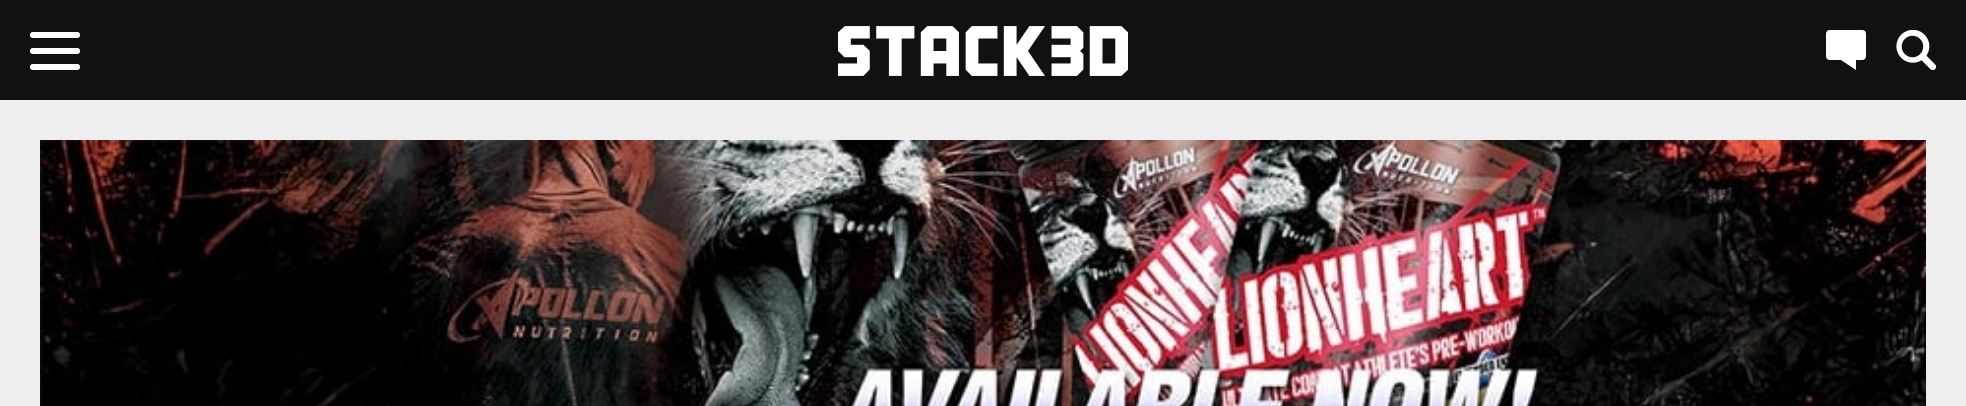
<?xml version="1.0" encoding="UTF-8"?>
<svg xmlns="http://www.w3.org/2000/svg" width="1966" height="406">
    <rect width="100%" height="100%" fill="#EEEEEE"/>
    <rect x="0" y="0" width="1966" height="100" fill="#111111"/>
    <rect x="30" y="48" width="50" height="6" rx="3" fill="#FFFFFF"/>
    <rect x="30" y="32" width="50" height="6" rx="3" fill="#FFFFFF"/>
    <rect x="30" y="64" width="50" height="6" rx="3" fill="#FFFFFF"/>
    <image x="838" y="26" width="290" height="50" href="img_01.png"/>
    <rect x="1826" y="30" width="40" height="30" rx="4" fill="#FFFFFF"/>
    <path d="M 1856 70 V 60 H 1841 Z" fill="#FFFFFF"/>
    <image x="1896" y="30" width="40" height="40" href="img_02.png"/>
    <image x="40" y="140" width="1886" height="266" href="img_03.png"/>
</svg>
